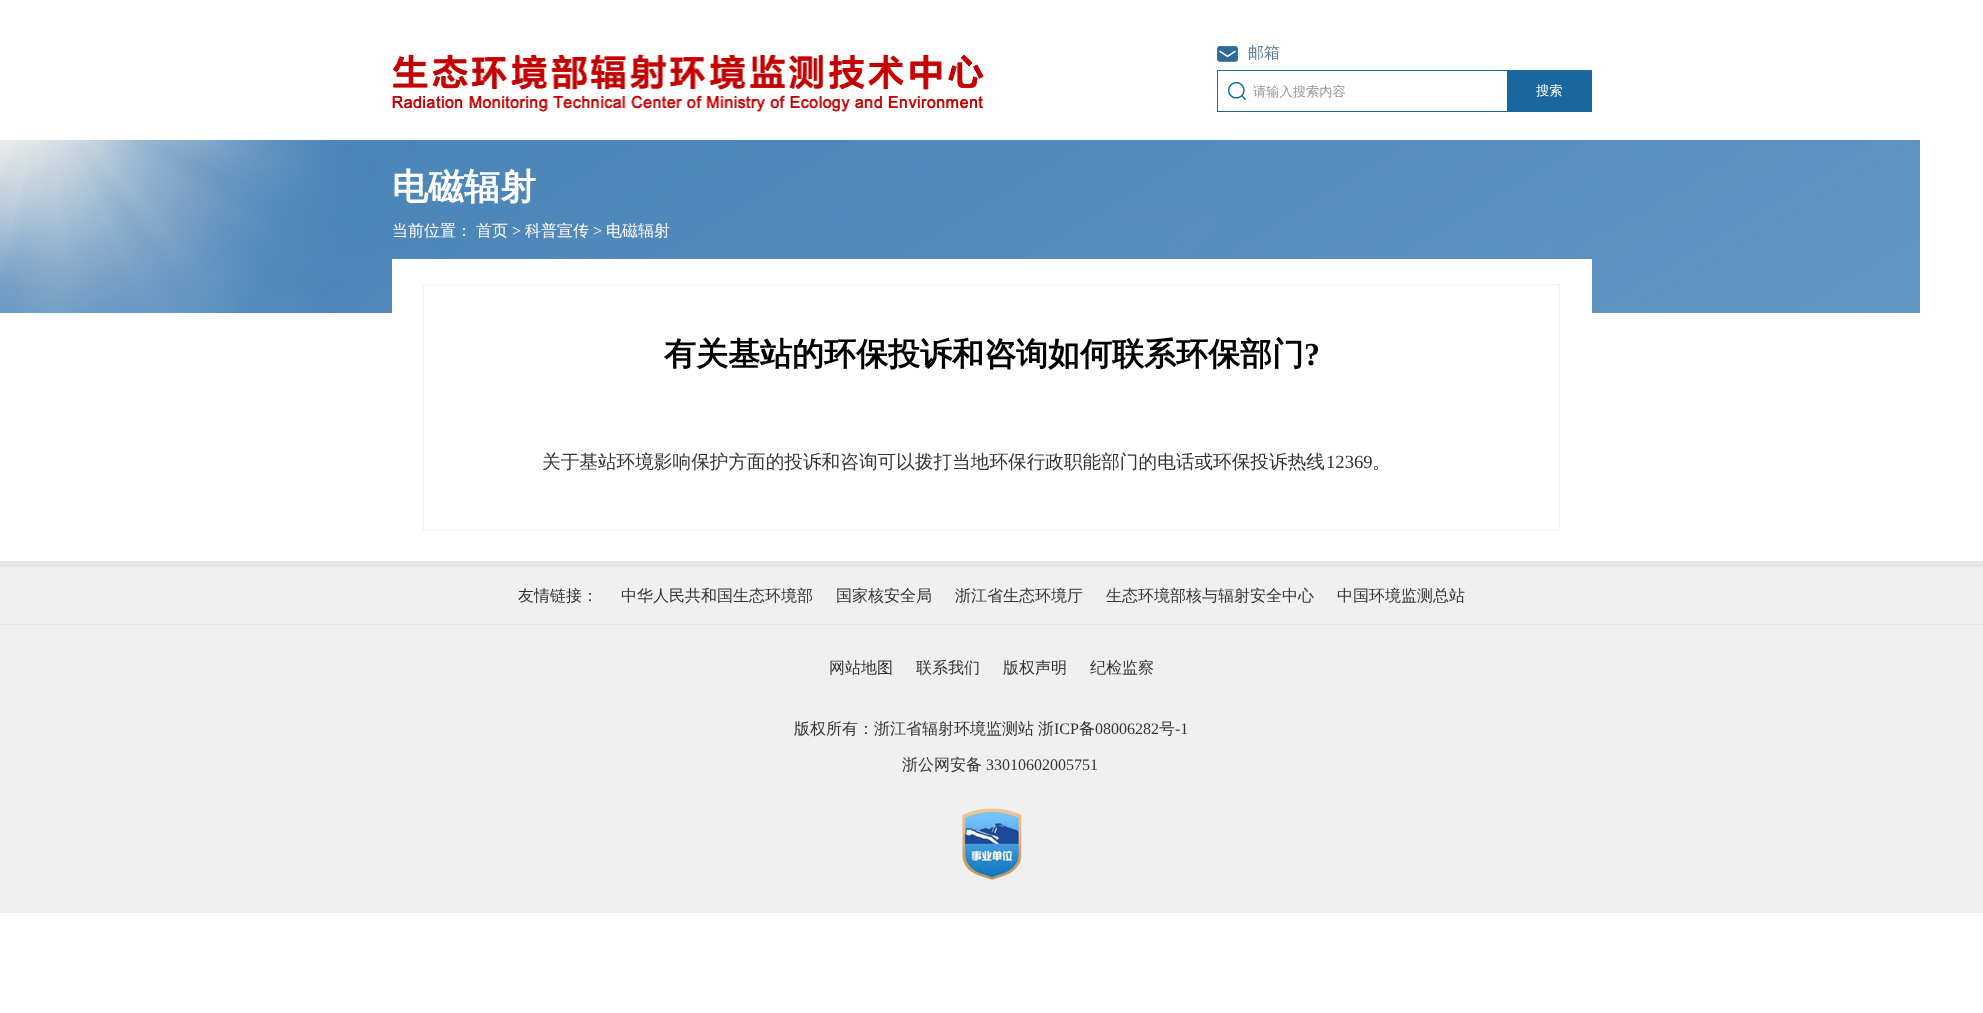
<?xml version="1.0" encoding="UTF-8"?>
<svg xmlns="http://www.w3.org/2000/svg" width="1983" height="1013">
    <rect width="100%" height="100%" fill="#FFFFFF"/>
    <image x="392" y="54" width="592" height="58" href="img_01.png"/>
    <image x="1217" y="46" width="21" height="16" href="img_02.png"/>
    <text x="1248" y="58" font-family="WenQuanYi Zen Hei" font-size="16" font-weight="500" fill="#597D9D">邮箱</text>
    <image x="1228" y="82" width="18" height="18" href="img_03.png"/>
    <rect x="1217.5" y="70.5" width="290" height="41" fill="none" stroke="#1A669F"/>
    <text x="1253" y="96" font-family="WenQuanYi Zen Hei" font-size="13.25" font-weight="500" fill="#999999">请输入搜索内容</text>
    <rect x="1508" y="70" width="84" height="42" fill="#1A669F"/>
    <text x="1536" y="95" font-family="WenQuanYi Zen Hei" font-size="13.25" font-weight="500" fill="#FFFFFF">搜索</text>
    <image x="0" y="140" width="1920" height="173" href="img_04.png"/>
    <text x="392" y="199" font-family="WenQuanYi Zen Hei" font-size="36" font-weight="700" fill="#FFFFFF">电磁辐射</text>
    <text x="392" y="236" font-family="WenQuanYi Zen Hei" font-size="16" font-weight="500" fill="#FFFFFF">当前位置：</text>
    <text x="476" y="236" font-family="WenQuanYi Zen Hei" font-size="16" font-weight="500" fill="#FFFFFF">首页</text>
    <text x="512" y="236" font-family="Liberation Serif" font-size="16" fill="#FFFFFF">&gt;</text>
    <text x="525" y="236" font-family="WenQuanYi Zen Hei" font-size="16" font-weight="500" fill="#FFFFFF">科普宣传</text>
    <text x="593" y="236" font-family="Liberation Serif" font-size="16" fill="#FFFFFF">&gt;</text>
    <text x="606" y="236" font-family="WenQuanYi Zen Hei" font-size="16" font-weight="500" fill="#FFFFFF">电磁辐射</text>
    <rect x="392" y="259" width="1200" height="54" fill="#FFFFFF"/>
    <rect x="423.5" y="284.5" width="1136" height="246" fill="none" stroke="#F4F4F4"/>
    <text x="664" y="365" font-family="WenQuanYi Zen Hei" font-size="32" font-weight="700" fill="#000000">有关基站的环保投诉和咨询如何联系环保部门</text>
    <text x="1304" y="365" font-family="Liberation Serif" font-size="32" font-weight="700" fill="#000000">?</text>
    <text x="542" y="468" font-family="WenQuanYi Zen Hei" font-size="18.65" font-weight="500" fill="#333333">关于基站环境影响保护方面的投诉和咨询可以拨打当地环保行政职能部门的电话或环保投诉热线</text>
    <text x="1326" y="468" font-family="Liberation Serif" font-size="18.65" fill="#333333">12369</text>
    <text x="1372" y="468" font-family="WenQuanYi Zen Hei" font-size="18.65" font-weight="500" fill="#333333">。</text>
    <rect x="0" y="567" width="1983" height="57" fill="#F0F0F0"/>
    <rect x="0" y="561" width="1983" height="6" fill="#E6E6E6"/>
    <rect x="0" y="624" width="1983" height="1" fill="#E6E6E6"/>
    <text x="518" y="601" font-family="WenQuanYi Zen Hei" font-size="16" font-weight="500" fill="#333333">友情链接：</text>
    <text x="621" y="601" font-family="WenQuanYi Zen Hei" font-size="16" font-weight="500" fill="#333333">中华人民共和国生态环境部</text>
    <text x="836" y="601" font-family="WenQuanYi Zen Hei" font-size="16" font-weight="500" fill="#333333">国家核安全局</text>
    <text x="955" y="601" font-family="WenQuanYi Zen Hei" font-size="16" font-weight="500" fill="#333333">浙江省生态环境厅</text>
    <text x="1106" y="601" font-family="WenQuanYi Zen Hei" font-size="16" font-weight="500" fill="#333333">生态环境部核与辐射安全中心</text>
    <text x="1337" y="601" font-family="WenQuanYi Zen Hei" font-size="16" font-weight="500" fill="#333333">中国环境监测总站</text>
    <rect x="0" y="625" width="1983" height="288" fill="#F0F0F0"/>
    <text x="829" y="673" font-family="WenQuanYi Zen Hei" font-size="16" font-weight="500" fill="#333333">网站地图</text>
    <text x="916" y="673" font-family="WenQuanYi Zen Hei" font-size="16" font-weight="500" fill="#333333">联系我们</text>
    <text x="1003" y="673" font-family="WenQuanYi Zen Hei" font-size="16" font-weight="500" fill="#333333">版权声明</text>
    <text x="1090" y="673" font-family="WenQuanYi Zen Hei" font-size="16" font-weight="500" fill="#333333">纪检监察</text>
    <text x="794" y="734" font-family="WenQuanYi Zen Hei" font-size="16" font-weight="500" fill="#333333">版权所有：浙江省辐射环境监测站</text>
    <text x="1038" y="734" font-family="WenQuanYi Zen Hei" font-size="16" font-weight="500" fill="#333333">浙</text>
    <text x="1054" y="734" font-family="Liberation Serif" font-size="16" fill="#333333">ICP</text>
    <text x="1079" y="734" font-family="WenQuanYi Zen Hei" font-size="16" font-weight="500" fill="#333333">备</text>
    <text x="1095" y="734" font-family="Liberation Serif" font-size="16" fill="#333333">08006282</text>
    <text x="1159" y="734" font-family="WenQuanYi Zen Hei" font-size="16" font-weight="500" fill="#333333">号</text>
    <text x="1175" y="734" font-family="Liberation Serif" font-size="16" fill="#333333">-1</text>
    <text x="902" y="770" font-family="WenQuanYi Zen Hei" font-size="16" font-weight="500" fill="#333333">浙公网安备</text>
    <text x="986" y="770" font-family="Liberation Serif" font-size="16" fill="#333333">33010602005751</text>
    <image x="962" y="808" width="60" height="72" href="img_05.png"/>
</svg>
